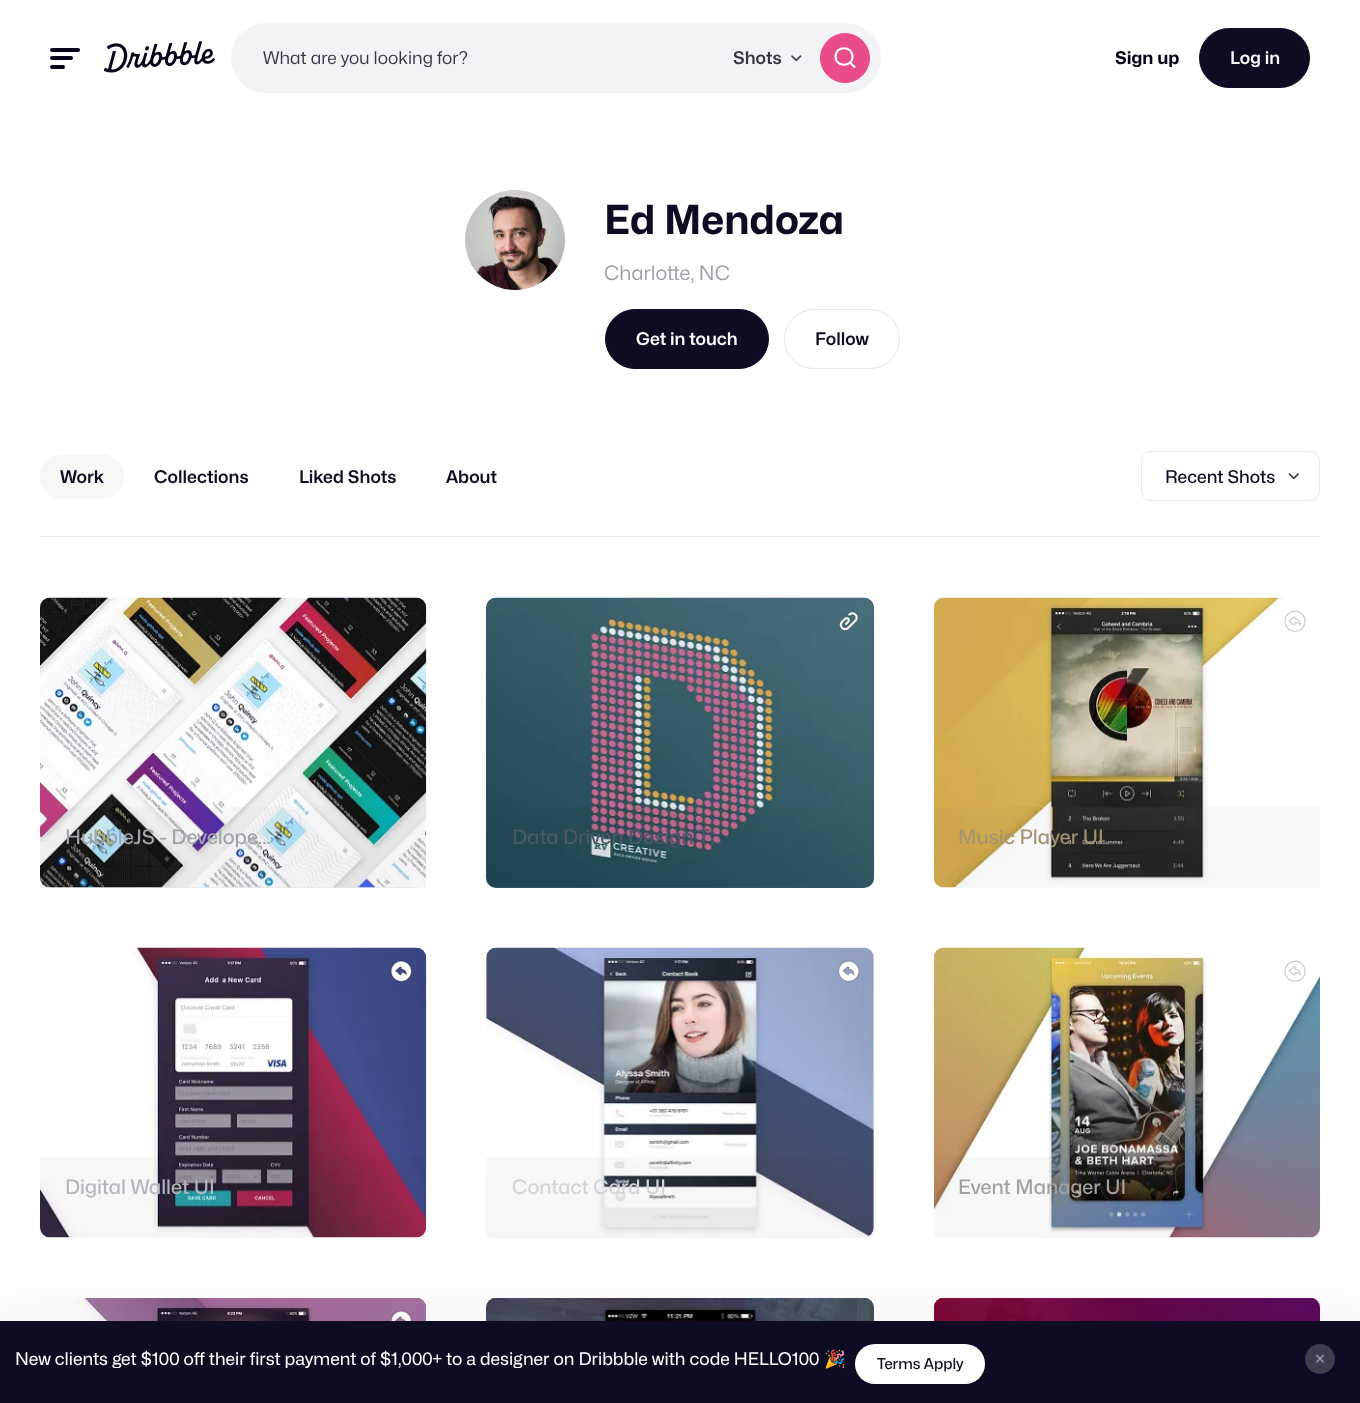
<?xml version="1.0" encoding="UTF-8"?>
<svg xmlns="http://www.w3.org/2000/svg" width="1360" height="1403">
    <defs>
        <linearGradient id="g1" gradientUnits="userSpaceOnUse" x1="233" y1="598" x2="233" y2="888"><stop offset="0" stop-color="#000000" stop-opacity="0"/><stop offset="0.15" stop-color="#000000" stop-opacity="0"/><stop offset="0.23" stop-color="#000000" stop-opacity="0"/><stop offset="0.29" stop-color="#000000" stop-opacity="0"/><stop offset="0.35" stop-color="#000000" stop-opacity="0.01"/><stop offset="0.41" stop-color="#000000" stop-opacity="0.01"/><stop offset="0.47" stop-color="#000000" stop-opacity="0.02"/><stop offset="0.53" stop-color="#000000" stop-opacity="0.02"/><stop offset="0.59" stop-color="#000000" stop-opacity="0.02"/><stop offset="0.65" stop-color="#000000" stop-opacity="0.02"/><stop offset="0.71" stop-color="#000000" stop-opacity="0.02"/><stop offset="0.78" stop-color="#000000" stop-opacity="0.03"/><stop offset="0.84" stop-color="#000000" stop-opacity="0.03"/><stop offset="0.92" stop-color="#000000" stop-opacity="0.03"/><stop offset="1" stop-color="#000000" stop-opacity="0.03"/></linearGradient>
        <linearGradient id="g2" gradientUnits="userSpaceOnUse" x1="680" y1="598" x2="680" y2="888"><stop offset="0" stop-color="#000000" stop-opacity="0"/><stop offset="0.15" stop-color="#000000" stop-opacity="0"/><stop offset="0.23" stop-color="#000000" stop-opacity="0"/><stop offset="0.29" stop-color="#000000" stop-opacity="0"/><stop offset="0.35" stop-color="#000000" stop-opacity="0.01"/><stop offset="0.41" stop-color="#000000" stop-opacity="0.01"/><stop offset="0.47" stop-color="#000000" stop-opacity="0.02"/><stop offset="0.53" stop-color="#000000" stop-opacity="0.02"/><stop offset="0.59" stop-color="#000000" stop-opacity="0.02"/><stop offset="0.65" stop-color="#000000" stop-opacity="0.02"/><stop offset="0.71" stop-color="#000000" stop-opacity="0.02"/><stop offset="0.78" stop-color="#000000" stop-opacity="0.03"/><stop offset="0.84" stop-color="#000000" stop-opacity="0.03"/><stop offset="0.92" stop-color="#000000" stop-opacity="0.03"/><stop offset="1" stop-color="#000000" stop-opacity="0.03"/></linearGradient>
        <linearGradient id="g3" gradientUnits="userSpaceOnUse" x1="1127" y1="598" x2="1127" y2="888"><stop offset="0" stop-color="#000000" stop-opacity="0"/><stop offset="0.15" stop-color="#000000" stop-opacity="0"/><stop offset="0.23" stop-color="#000000" stop-opacity="0"/><stop offset="0.29" stop-color="#000000" stop-opacity="0"/><stop offset="0.35" stop-color="#000000" stop-opacity="0.01"/><stop offset="0.41" stop-color="#000000" stop-opacity="0.01"/><stop offset="0.47" stop-color="#000000" stop-opacity="0.02"/><stop offset="0.53" stop-color="#000000" stop-opacity="0.02"/><stop offset="0.59" stop-color="#000000" stop-opacity="0.02"/><stop offset="0.65" stop-color="#000000" stop-opacity="0.02"/><stop offset="0.71" stop-color="#000000" stop-opacity="0.02"/><stop offset="0.78" stop-color="#000000" stop-opacity="0.03"/><stop offset="0.84" stop-color="#000000" stop-opacity="0.03"/><stop offset="0.92" stop-color="#000000" stop-opacity="0.03"/><stop offset="1" stop-color="#000000" stop-opacity="0.03"/></linearGradient>
        <linearGradient id="g4" gradientUnits="userSpaceOnUse" x1="233" y1="948" x2="233" y2="1238"><stop offset="0" stop-color="#000000" stop-opacity="0"/><stop offset="0.15" stop-color="#000000" stop-opacity="0"/><stop offset="0.23" stop-color="#000000" stop-opacity="0"/><stop offset="0.29" stop-color="#000000" stop-opacity="0"/><stop offset="0.35" stop-color="#000000" stop-opacity="0.01"/><stop offset="0.41" stop-color="#000000" stop-opacity="0.01"/><stop offset="0.47" stop-color="#000000" stop-opacity="0.02"/><stop offset="0.53" stop-color="#000000" stop-opacity="0.02"/><stop offset="0.59" stop-color="#000000" stop-opacity="0.02"/><stop offset="0.65" stop-color="#000000" stop-opacity="0.02"/><stop offset="0.71" stop-color="#000000" stop-opacity="0.02"/><stop offset="0.78" stop-color="#000000" stop-opacity="0.03"/><stop offset="0.84" stop-color="#000000" stop-opacity="0.03"/><stop offset="0.92" stop-color="#000000" stop-opacity="0.03"/><stop offset="1" stop-color="#000000" stop-opacity="0.03"/></linearGradient>
        <linearGradient id="g5" gradientUnits="userSpaceOnUse" x1="680" y1="948" x2="680" y2="1238"><stop offset="0" stop-color="#000000" stop-opacity="0"/><stop offset="0.15" stop-color="#000000" stop-opacity="0"/><stop offset="0.23" stop-color="#000000" stop-opacity="0"/><stop offset="0.29" stop-color="#000000" stop-opacity="0"/><stop offset="0.35" stop-color="#000000" stop-opacity="0.01"/><stop offset="0.41" stop-color="#000000" stop-opacity="0.01"/><stop offset="0.47" stop-color="#000000" stop-opacity="0.02"/><stop offset="0.53" stop-color="#000000" stop-opacity="0.02"/><stop offset="0.59" stop-color="#000000" stop-opacity="0.02"/><stop offset="0.65" stop-color="#000000" stop-opacity="0.02"/><stop offset="0.71" stop-color="#000000" stop-opacity="0.02"/><stop offset="0.78" stop-color="#000000" stop-opacity="0.03"/><stop offset="0.84" stop-color="#000000" stop-opacity="0.03"/><stop offset="0.92" stop-color="#000000" stop-opacity="0.03"/><stop offset="1" stop-color="#000000" stop-opacity="0.03"/></linearGradient>
        <linearGradient id="g6" gradientUnits="userSpaceOnUse" x1="1127" y1="948" x2="1127" y2="1238"><stop offset="0" stop-color="#000000" stop-opacity="0"/><stop offset="0.15" stop-color="#000000" stop-opacity="0"/><stop offset="0.23" stop-color="#000000" stop-opacity="0"/><stop offset="0.29" stop-color="#000000" stop-opacity="0"/><stop offset="0.35" stop-color="#000000" stop-opacity="0.01"/><stop offset="0.41" stop-color="#000000" stop-opacity="0.01"/><stop offset="0.47" stop-color="#000000" stop-opacity="0.02"/><stop offset="0.53" stop-color="#000000" stop-opacity="0.02"/><stop offset="0.59" stop-color="#000000" stop-opacity="0.02"/><stop offset="0.65" stop-color="#000000" stop-opacity="0.02"/><stop offset="0.71" stop-color="#000000" stop-opacity="0.02"/><stop offset="0.78" stop-color="#000000" stop-opacity="0.03"/><stop offset="0.84" stop-color="#000000" stop-opacity="0.03"/><stop offset="0.92" stop-color="#000000" stop-opacity="0.03"/><stop offset="1" stop-color="#000000" stop-opacity="0.03"/></linearGradient>
        <filter id="blur1" x="-50%" y="-200%" width="200%" height="500%"><feGaussianBlur stdDeviation="25"/></filter>
    </defs>
    <rect width="100%" height="100%" fill="#FFFFFF"/>
    <rect x="50" y="48" width="30" height="4" rx="2" fill="#060318"/>
    <rect x="50" y="56" width="23" height="4" rx="2" fill="#060318"/>
    <rect x="50" y="65" width="15" height="4" rx="2" fill="#060318"/>
    <image x="104" y="41" width="111" height="32" href="img_01.png"/>
    <rect x="231" y="23" width="650" height="70" rx="35" fill="#F3F3F6"/>
    <text x="263" y="64" font-family="Mona Sans" font-size="17.5" fill="#3A3546">What are you looking for?</text>
    <text x="733" y="64" font-family="Mona Sans" font-size="17.5" font-weight="600" fill="#3A3546">Shots</text>
    <image x="791" y="55" width="11" height="7" href="img_02.png"/>
    <circle cx="845" cy="58" r="24.5" fill="#EA4C89" stroke="#EA4C89"/>
    <path d="M 854.5 67 L 850 62.5 M 852.5 56.5 C 852.5 67.5 835.5 67.5 835.5 56.5 C 835.5 45.5 852.5 45.5 852.5 56.5 Z" fill="none" stroke="#FFFFFF" stroke-width="2.1" stroke-linecap="round" stroke-linejoin="round"/>
    <text x="1115" y="64" font-family="Mona Sans" font-size="17.5" font-weight="700" fill="#060318">Sign up</text>
    <rect x="1199.5" y="28.5" width="110" height="59" rx="29.5" fill="#0D0C22" stroke="#0D0C22"/>
    <text x="1230" y="64" font-family="Mona Sans" font-size="17.5" font-weight="600" fill="#FFFFFF">Log in</text>
    <circle cx="515" cy="240" r="50" fill="#FDFCFB"/>
    <image x="465" y="190" width="100" height="100" href="img_03.png"/>
    <text x="604" y="234" font-family="Mona Sans" font-size="40" font-weight="700" fill="#0D0C22">Ed Mendoza</text>
    <text x="604" y="280" font-family="Mona Sans" font-size="20" fill="#9E9EA7">Charlotte, NC</text>
    <rect x="605.5" y="309.5" width="163" height="59" rx="29.5" fill="#0D0C22" stroke="#0D0C22"/>
    <text x="636" y="345" font-family="Mona Sans" font-size="17.5" font-weight="600" fill="#FFFFFF">Get in touch</text>
    <rect x="784.5" y="309.5" width="115" height="59" rx="29.5" fill="none" stroke="#E7E7E9"/>
    <text x="815" y="345" font-family="Mona Sans" font-size="17.5" font-weight="600" fill="#0D0C22">Follow</text>
    <rect x="40" y="536" width="1280" height="1" fill="#E7E7E9"/>
    <rect x="40" y="454" width="84" height="45" rx="22.5" fill="#F8F7F4"/>
    <text x="60" y="483" font-family="Mona Sans" font-size="17.5" font-weight="600" fill="#0D0C22">Work</text>
    <text x="154" y="483" font-family="Mona Sans" font-size="17.5" font-weight="600" fill="#0D0C22">Collections</text>
    <text x="299" y="483" font-family="Mona Sans" font-size="17.5" font-weight="600" fill="#0D0C22">Liked Shots</text>
    <text x="446" y="483" font-family="Mona Sans" font-size="17.5" font-weight="600" fill="#0D0C22">About</text>
    <rect x="1141.5" y="451.5" width="178" height="49" rx="9.5" fill="none" stroke="#E9E9EB"/>
    <text x="1165" y="483" font-family="Mona Sans" font-size="17.5" font-weight="500" fill="#0D0C22">Recent Shots</text>
    <image x="1288" y="473" width="11" height="7" href="img_04.png"/>
    <rect x="40" y="598" width="386" height="290" rx="10" fill="#EEEEEF"/>
    <image x="40" y="597" width="387" height="291" href="img_05.png"/>
    <rect x="40" y="807" width="386" height="81" fill="url(#g1)"/>
    <text x="65" y="844" font-family="Mona Sans" font-size="20" font-weight="500" fill="#A0A4AB">HubbleJS - Develope…</text>
    <rect x="486" y="598" width="388" height="290" rx="10" fill="#375B67"/>
    <image x="486" y="597" width="388" height="291" href="img_06.png"/>
    <image x="839" y="611" width="20" height="20" href="img_07.png"/>
    <rect x="486" y="807" width="388" height="81" fill="url(#g2)"/>
    <text x="512" y="844" font-family="Mona Sans" font-size="20" font-weight="500" fill="#4C5767">Data Driven Design T…</text>
    <image x="933" y="597" width="352" height="291" href="img_08.png"/>
    <image x="1284" y="610" width="22" height="22" href="img_09.png"/>
    <rect x="934" y="807" width="386" height="81" fill="url(#g3)"/>
    <text x="958" y="844" font-family="Mona Sans" font-size="20" font-weight="500" fill="#A29371">Music Player UI</text>
    <image x="40" y="947" width="387" height="291" href="img_10.png"/>
    <image x="390" y="960" width="22" height="22" href="img_11.png"/>
    <rect x="40" y="1157" width="386" height="81" fill="url(#g4)"/>
    <text x="65" y="1194" font-family="Mona Sans" font-size="20" font-weight="500" fill="#B3B8BD">Digital Wallet UI</text>
    <rect x="486" y="948" width="388" height="290" rx="10" fill="#FCFCFD"/>
    <image x="486" y="947" width="388" height="290" href="img_12.png"/>
    <image x="838" y="960" width="22" height="22" href="img_13.png"/>
    <rect x="486" y="1157" width="388" height="81" fill="url(#g5)"/>
    <text x="512" y="1194" font-family="Mona Sans" font-size="20" font-weight="500" fill="#D3D4D7">Contact Card UI</text>
    <image x="933" y="947" width="387" height="291" href="img_14.png"/>
    <image x="1284" y="960" width="22" height="22" href="img_15.png"/>
    <rect x="934" y="1157" width="386" height="81" fill="url(#g6)"/>
    <text x="958" y="1194" font-family="Mona Sans" font-size="20" font-weight="500" fill="#A2A1A0">Event Manager UI</text>
    <image x="40" y="1298" width="386" height="23" href="img_16.png"/>
    <image x="390" y="1310" width="22" height="11" href="img_17.png"/>
    <rect x="486" y="1298" width="388" height="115" rx="10" fill="#494C5A"/>
    <image x="486" y="1298" width="388" height="23" href="img_18.png"/>
    <image x="934" y="1298" width="386" height="23" href="img_19.png"/>
    <rect x="0" y="1314" width="1360" height="82" fill="#000000" fill-opacity="0.06" filter="url(#blur1)"/>
    <rect x="0" y="1321" width="1360" height="82" fill="#0D0C22"/>
    <text x="15" y="1365" font-family="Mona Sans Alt" font-size="17.5" fill="#FFFFFF">New clients get $100 off their first payment of $1,000+ to a designer on Dribbble with code HELLO100</text>
    <text x="824" y="1365" font-family="Noto Color Emoji" font-size="17.5" fill="#FFFFFF">🎉</text>
    <rect x="855" y="1344" width="130" height="40" rx="20" fill="#FFFFFF"/>
    <text x="877" y="1369" font-family="Mona Sans" font-size="15" font-weight="500" fill="#0D0C22">Terms Apply</text>
    <circle cx="1320" cy="1359" r="15" fill="#3D3D4E"/>
    <image x="1316" y="1354" width="8" height="9" href="img_20.png"/>
</svg>
